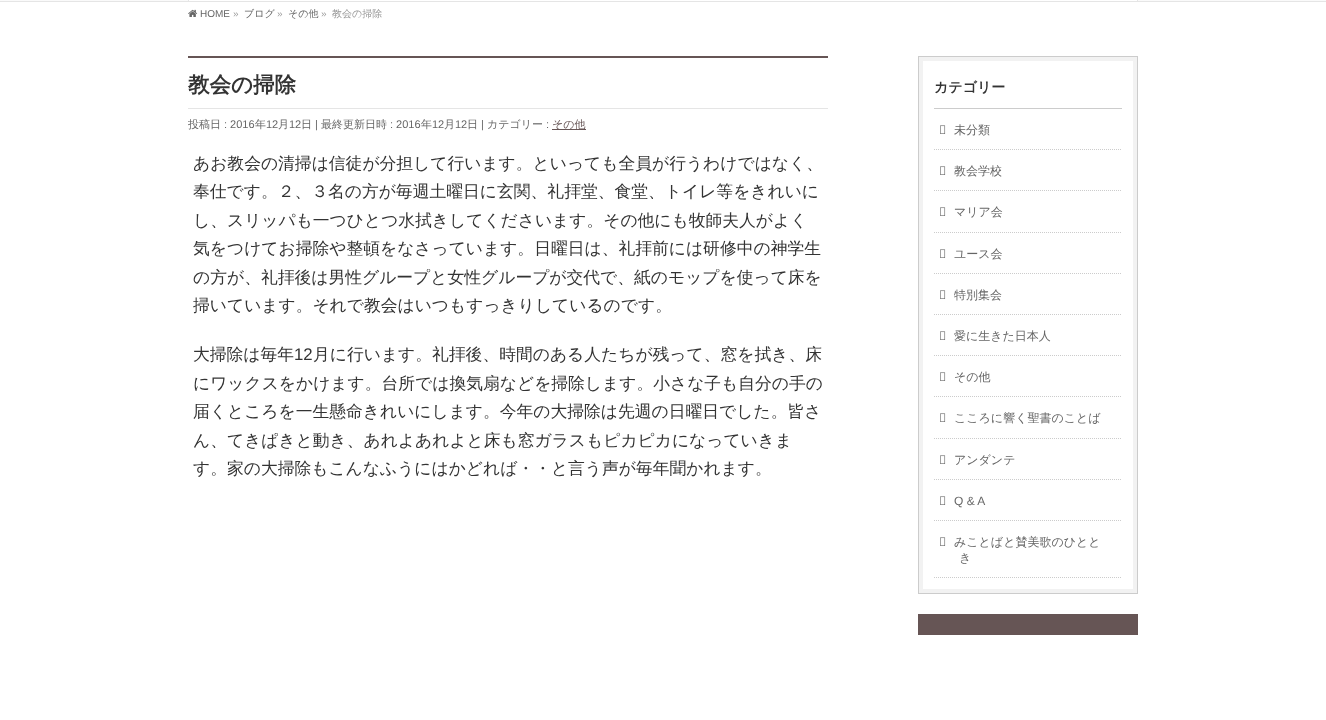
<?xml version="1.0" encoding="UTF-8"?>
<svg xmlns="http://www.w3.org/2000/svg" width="1326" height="720">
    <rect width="100%" height="100%" fill="#FFFFFF"/>
    <rect x="0" y="0" width="1326" height="1" fill="#FAFAFA"/>
    <rect x="0" y="1" width="1326" height="1" fill="#E5E5E5"/>
    <rect x="188" y="0" width="950" height="1" fill="#FFFFFF"/>
    <rect x="1137" y="0" width="1" height="1" fill="#E5E5E5"/>
    <rect x="188" y="0" width="1" height="1" fill="#E5E5E5"/>
    <image x="188" y="9" width="10" height="8" href="img_01.png"/>
    <text x="200" y="17" font-family="Liberation Sans" font-size="10" fill="#666666">HOME</text>
    <text x="233" y="17" font-family="Liberation Sans" font-size="10" fill="#999999">»</text>
    <text x="244" y="17" font-family="WenQuanYi Zen Hei" font-size="10" font-weight="500" fill="#666666">ブログ</text>
    <text x="277" y="17" font-family="Liberation Sans" font-size="10" fill="#999999">»</text>
    <text x="288" y="17" font-family="WenQuanYi Zen Hei" font-size="10" font-weight="500" fill="#666666">その他</text>
    <text x="321" y="17" font-family="Liberation Sans" font-size="10" fill="#999999">»</text>
    <text x="332" y="17" font-family="WenQuanYi Zen Hei" font-size="10" font-weight="500" fill="#999999">教会の掃除</text>
    <rect x="188" y="56" width="640" height="2" fill="#665555"/>
    <rect x="188" y="108" width="640" height="1" fill="#E5E5E5"/>
    <text x="188" y="92" font-family="WenQuanYi Zen Hei" font-size="21.5" font-weight="700" fill="#333333">教会の掃除</text>
    <text x="188" y="128" font-family="WenQuanYi Zen Hei" font-size="11" font-weight="500" fill="#666666">投稿日</text>
    <text x="224" y="128" font-family="Liberation Sans" font-size="11" fill="#666666">: 2016</text>
    <text x="255" y="128" font-family="WenQuanYi Zen Hei" font-size="11" font-weight="500" fill="#666666">年</text>
    <text x="266" y="128" font-family="Liberation Sans" font-size="11" fill="#666666">12</text>
    <text x="278" y="128" font-family="WenQuanYi Zen Hei" font-size="11" font-weight="500" fill="#666666">月</text>
    <text x="289" y="128" font-family="Liberation Sans" font-size="11" fill="#666666">12</text>
    <text x="301" y="128" font-family="WenQuanYi Zen Hei" font-size="11" font-weight="500" fill="#666666">日</text>
    <text x="315" y="128" font-family="Liberation Sans" font-size="11" fill="#666666">|</text>
    <text x="321" y="128" font-family="WenQuanYi Zen Hei" font-size="11" font-weight="500" fill="#666666">最終更新日時</text>
    <text x="390" y="128" font-family="Liberation Sans" font-size="11" fill="#666666">: 2016</text>
    <text x="421" y="128" font-family="WenQuanYi Zen Hei" font-size="11" font-weight="500" fill="#666666">年</text>
    <text x="432" y="128" font-family="Liberation Sans" font-size="11" fill="#666666">12</text>
    <text x="444" y="128" font-family="WenQuanYi Zen Hei" font-size="11" font-weight="500" fill="#666666">月</text>
    <text x="455" y="128" font-family="Liberation Sans" font-size="11" fill="#666666">12</text>
    <text x="467" y="128" font-family="WenQuanYi Zen Hei" font-size="11" font-weight="500" fill="#666666">日</text>
    <text x="481" y="128" font-family="Liberation Sans" font-size="11" fill="#666666">|</text>
    <text x="487" y="128" font-family="WenQuanYi Zen Hei" font-size="11" font-weight="500" fill="#666666">カテゴリー</text>
    <text x="546" y="128" font-family="Liberation Sans" font-size="11" fill="#666666">:</text>
    <rect x="552" y="129" width="34" height="1" fill="#665555"/>
    <text x="552" y="128" font-family="WenQuanYi Zen Hei" font-size="11" font-weight="500" fill="#665555">その他</text>
    <text font-family="WenQuanYi Zen Hei" font-size="16.8" font-weight="500" fill="#333333">
        <tspan x="193" y="169">あお教会の清掃は信徒が分担して行います。といっても全員が行うわけではなく、</tspan>
        <tspan x="193" y="197">奉仕です。２、３名の方が毎週土曜日に玄関、礼拝堂、食堂、トイレ等をきれいに</tspan>
        <tspan x="193" y="226">し、スリッパも一つひとつ水拭きしてくださいます。その他にも牧師夫人がよく</tspan>
        <tspan x="193" y="254">気をつけてお掃除や整頓をなさっています。日曜日は、礼拝前には研修中の神学生</tspan>
        <tspan x="193" y="283">の方が、礼拝後は男性グループと女性グループが交代で、紙のモップを使って床を</tspan>
        <tspan x="193" y="311">掃いています。それで教会はいつもすっきりしているのです。</tspan>
    </text>
    <text x="193" y="360" font-family="WenQuanYi Zen Hei" font-size="16.8" font-weight="500" fill="#333333">大掃除は毎年</text>
    <text x="294" y="360" font-family="Liberation Sans" font-size="16.8" fill="#333333">12</text>
    <text x="313" y="360" font-family="WenQuanYi Zen Hei" font-size="16.8" font-weight="500" fill="#333333">月に行います。礼拝後、時間のある人たちが残って、窓を拭き、床</text>
    <text font-family="WenQuanYi Zen Hei" font-size="16.8" font-weight="500" fill="#333333">
        <tspan x="193" y="389">にワックスをかけます。台所では換気扇などを掃除します。小さな子も自分の手の</tspan>
        <tspan x="193" y="417">届くところを一生懸命きれいにします。今年の大掃除は先週の日曜日でした。皆さ</tspan>
        <tspan x="193" y="446">ん、てきぱきと動き、あれよあれよと床も窓ガラスもピカピカになっていきま</tspan>
        <tspan x="193" y="474">す。家の大掃除もこんなふうにはかどれば・・と言う声が毎年聞かれます。</tspan>
    </text>
    <rect x="921" y="59" width="214" height="532" fill="none" stroke="#F2F2F2" stroke-width="4"/>
    <rect x="918.5" y="56.5" width="219" height="537" fill="none" stroke="#CCCCCC"/>
    <rect x="934" y="108" width="188" height="1" fill="#CCCCCC"/>
    <text x="934" y="92" font-family="WenQuanYi Zen Hei" font-size="14" font-weight="700" fill="#333333">カテゴリー</text>
    <path d="M 934 149.5 H 1122" fill="none" stroke="#CCCCCC" stroke-dasharray="1 1"/>
    <image x="940" y="125" width="6" height="9" href="img_02.png"/>
    <text x="954" y="134" font-family="WenQuanYi Zen Hei" font-size="12" font-weight="500" fill="#666666">未分類</text>
    <path d="M 934 190.5 H 1122" fill="none" stroke="#CCCCCC" stroke-dasharray="1 1"/>
    <image x="940" y="166" width="6" height="9" href="img_02.png"/>
    <text x="954" y="175" font-family="WenQuanYi Zen Hei" font-size="12" font-weight="500" fill="#666666">教会学校</text>
    <path d="M 934 232.5 H 1122" fill="none" stroke="#CCCCCC" stroke-dasharray="1 1"/>
    <image x="940" y="207" width="6" height="9" href="img_02.png"/>
    <text x="954" y="216" font-family="WenQuanYi Zen Hei" font-size="12" font-weight="500" fill="#666666">マリア会</text>
    <path d="M 934 273.5 H 1122" fill="none" stroke="#CCCCCC" stroke-dasharray="1 1"/>
    <image x="940" y="249" width="6" height="9" href="img_02.png"/>
    <text x="954" y="258" font-family="WenQuanYi Zen Hei" font-size="12" font-weight="500" fill="#666666">ユース会</text>
    <path d="M 934 314.5 H 1122" fill="none" stroke="#CCCCCC" stroke-dasharray="1 1"/>
    <image x="940" y="290" width="6" height="9" href="img_02.png"/>
    <text x="954" y="299" font-family="WenQuanYi Zen Hei" font-size="12" font-weight="500" fill="#666666">特別集会</text>
    <path d="M 934 355.5 H 1122" fill="none" stroke="#CCCCCC" stroke-dasharray="1 1"/>
    <image x="940" y="331" width="6" height="9" href="img_02.png"/>
    <text x="954" y="340" font-family="WenQuanYi Zen Hei" font-size="12" font-weight="500" fill="#666666">愛に生きた日本人</text>
    <path d="M 934 396.5 H 1122" fill="none" stroke="#CCCCCC" stroke-dasharray="1 1"/>
    <image x="940" y="372" width="6" height="9" href="img_02.png"/>
    <text x="954" y="381" font-family="WenQuanYi Zen Hei" font-size="12" font-weight="500" fill="#666666">その他</text>
    <path d="M 934 438.5 H 1122" fill="none" stroke="#CCCCCC" stroke-dasharray="1 1"/>
    <image x="940" y="413" width="6" height="9" href="img_02.png"/>
    <text x="954" y="422" font-family="WenQuanYi Zen Hei" font-size="12" font-weight="500" fill="#666666">こころに響く聖書のことば</text>
    <path d="M 934 479.5 H 1122" fill="none" stroke="#CCCCCC" stroke-dasharray="1 1"/>
    <image x="940" y="455" width="6" height="9" href="img_02.png"/>
    <text x="954" y="464" font-family="WenQuanYi Zen Hei" font-size="12" font-weight="500" fill="#666666">アンダンテ</text>
    <path d="M 934 520.5 H 1122" fill="none" stroke="#CCCCCC" stroke-dasharray="1 1"/>
    <image x="940" y="496" width="6" height="9" href="img_02.png"/>
    <text x="954" y="505" font-family="Liberation Sans" font-size="12" fill="#666666">Q &amp; A</text>
    <path d="M 934 577.5 H 1122" fill="none" stroke="#CCCCCC" stroke-dasharray="1 1"/>
    <image x="940" y="537" width="6" height="9" href="img_02.png"/>
    <text x="954" y="546" font-family="WenQuanYi Zen Hei" font-size="12" font-weight="500" fill="#666666">みことばと賛美歌のひとと</text>
    <text x="959" y="562" font-family="WenQuanYi Zen Hei" font-size="12" font-weight="500" fill="#666666">き</text>
    <rect x="918" y="614" width="220" height="21" fill="#665555"/>
</svg>
